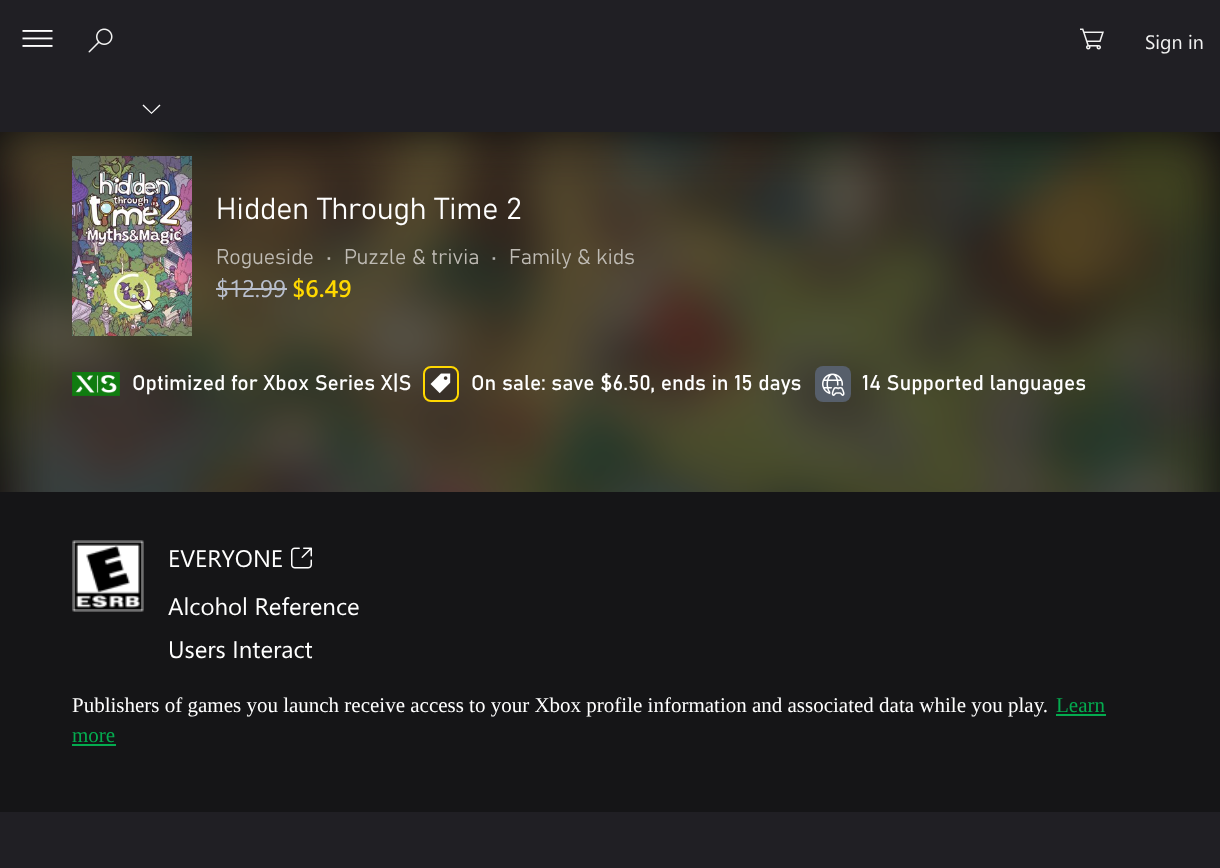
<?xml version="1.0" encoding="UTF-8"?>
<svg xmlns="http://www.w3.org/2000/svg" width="1220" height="868">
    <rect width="100%" height="100%" fill="#201F24"/>
    <rect x="0" y="132" width="1220" height="360" fill="#0C0B0D"/>
    <image x="22" y="30" width="31" height="17" href="img_01.png"/>
    <image x="88" y="28" width="25" height="25" href="img_02.png"/>
    <image x="1080" y="28" width="24" height="22" href="img_03.png"/>
    <text x="1145" y="49" font-family="Segoe UI" font-size="19.5" fill="#F2F2F2">Sign in</text>
    <path d="M 159.5 104.5 L 160.5 105.5 L 151.5 114 L 142.5 105.5 L 143.5 104.5 L 151.5 112.5 Z" fill="#FFFFFF"/>
    <image x="0" y="132" width="1220" height="360" href="img_04.png"/>
    <image x="72" y="156" width="120" height="180" href="img_05.png"/>
    <text x="216" y="219" font-family="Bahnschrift" font-size="30" font-weight="300" fill="#FFFFFF">Hidden Through Time 2</text>
    <text x="216" y="264" font-family="Bahnschrift" font-size="21" font-weight="300" fill="#BFBBB4">Rogueside</text>
    <text x="326" y="264" font-family="Bahnschrift" font-size="21" font-weight="300" fill="#BFBBB4">•</text>
    <text x="344" y="264" font-family="Bahnschrift" font-size="21" font-weight="300" fill="#BFBBB4">Puzzle &amp; trivia</text>
    <text x="491" y="264" font-family="Bahnschrift" font-size="21" font-weight="300" fill="#B5B5B2">•</text>
    <text x="509" y="264" font-family="Bahnschrift" font-size="21" font-weight="300" fill="#BFBBB4">Family &amp; kids</text>
    <text x="216" y="297" font-family="Segoe UI" font-size="24" fill="#B9BFCD">$12.99</text>
    <rect x="216" y="288" width="71" height="2" fill="#B9BFCD"/>
    <text x="292" y="297" font-family="Segoe UI" font-size="24" font-weight="600" fill="#FFD800">$6.49</text>
    <image x="72" y="372" width="48" height="24" href="img_06.png"/>
    <text x="132" y="390" font-family="Bahnschrift" font-size="21" fill="#FFFFFF">Optimized for Xbox Series X|S</text>
    <rect x="424" y="367" width="34" height="34" rx="7" fill="#201F24" fill-opacity="0.3" stroke="#FFD800" stroke-width="2"/>
    <image x="430" y="373" width="21" height="21" href="img_07.png"/>
    <text x="471" y="390" font-family="Bahnschrift" font-size="21" fill="#FFFFFF">On sale: save $6.50, ends in 15 days</text>
    <rect x="815" y="366" width="36" height="36" rx="8" fill="#575F6B"/>
    <image x="822" y="373" width="23" height="23" href="img_08.png"/>
    <text x="862" y="390" font-family="Bahnschrift" font-size="21" fill="#FFFFFF">14 Supported languages</text>
    <rect x="0" y="492" width="1220" height="320" fill="#151517"/>
    <image x="72" y="540" width="72" height="72" href="img_09.png"/>
    <text x="168" y="567" font-family="Segoe UI" font-size="24" fill="#FFFFFF">EVERYONE</text>
    <image x="291" y="547" width="21" height="22" href="img_10.png"/>
    <text font-family="Segoe UI" font-size="24" fill="#FFFFFF">
        <tspan x="168" y="615">Alcohol Reference</tspan>
        <tspan x="168" y="658">Users Interact</tspan>
    </text>
    <text x="72" y="712" font-family="Liberation Serif" font-size="21" fill="#FFFFFF">Publishers of games you launch receive access to your Xbox profile information and associated data while you play.</text>
    <text x="1056" y="712" font-family="Liberation Serif" font-size="21" fill="#04AB4F">Learn</text>
    <rect x="1056" y="714" width="50" height="2" fill="#04AB4F"/>
    <text x="72" y="742" font-family="Liberation Serif" font-size="21" fill="#04AB4F">more</text>
    <rect x="72" y="744" width="44" height="2" fill="#04AB4F"/>
</svg>
